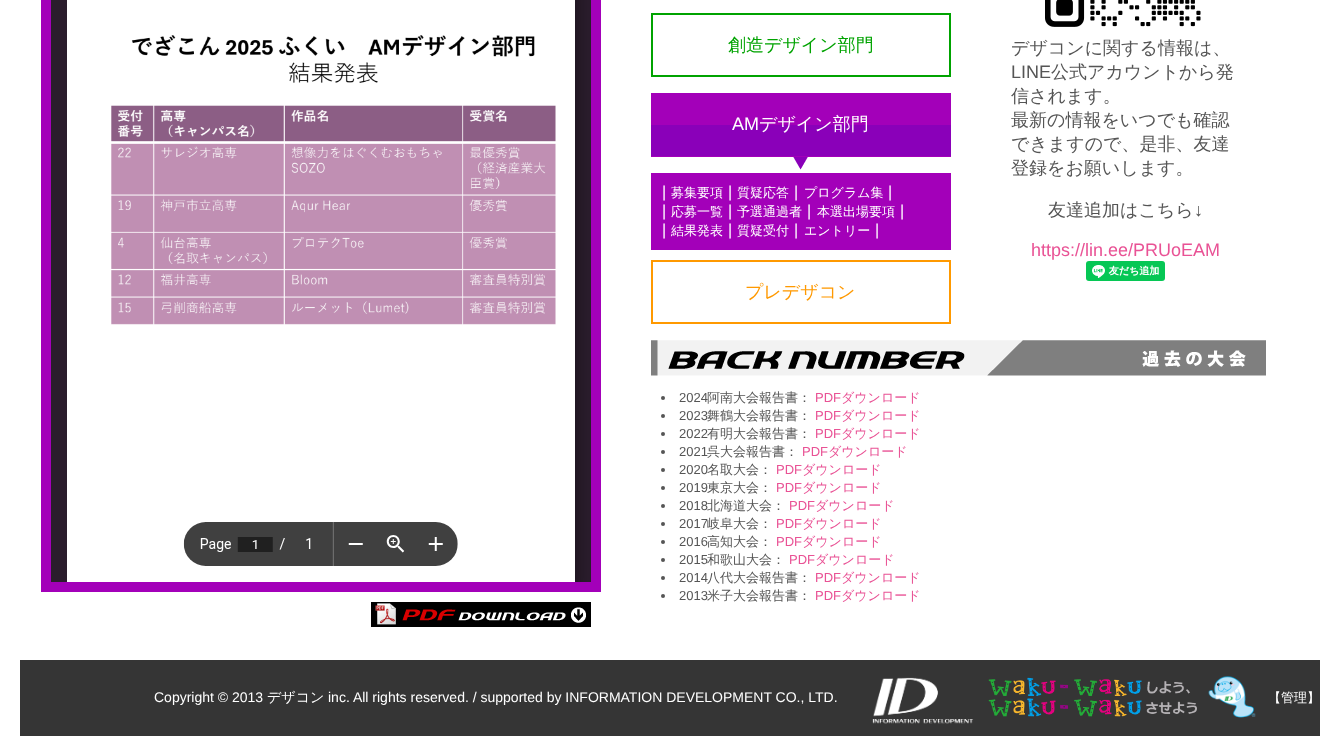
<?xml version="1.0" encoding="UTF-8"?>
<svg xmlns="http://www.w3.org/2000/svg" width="1339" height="736">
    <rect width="100%" height="100%" fill="#FFFFFF"/>
    <rect x="41" y="0" width="560" height="592" fill="#A300B9"/>
    <image x="51" y="0" width="540" height="582" href="img_01.png"/>
    <image x="371" y="602" width="220" height="25" href="img_02.png"/>
    <rect x="652" y="14" width="298" height="62" fill="none" stroke="#00A300" stroke-width="2"/>
    <text x="728" y="51" font-family="WenQuanYi Zen Hei" font-size="18" font-weight="500" fill="#00A300">創造デザイン部門</text>
    <rect x="652" y="94" width="298" height="62" fill="none" stroke="#A300B9" stroke-width="2"/>
    <rect x="653" y="95" width="296" height="30" fill="#A300B9"/>
    <rect x="651" y="125" width="300" height="31" fill="#8A00B9"/>
    <text x="732" y="130" font-family="Liberation Sans" font-size="18" fill="#FFFFFF">AM</text>
    <text x="759" y="130" font-family="WenQuanYi Zen Hei" font-size="18" font-weight="500" fill="#FFFFFF">デザイン部門</text>
    <image x="793" y="157" width="15" height="13" href="img_03.png"/>
    <rect x="651" y="173" width="300" height="77" fill="#A300B9"/>
    <text x="662" y="197" font-family="Liberation Sans" font-size="16" fill="#FFFFFF">|</text>
    <text x="671" y="197" font-family="WenQuanYi Zen Hei" font-size="13" font-weight="500" fill="#FFFFFF">募集要項</text>
    <text x="728" y="197" font-family="Liberation Sans" font-size="16" fill="#FFFFFF">|</text>
    <text x="737" y="197" font-family="WenQuanYi Zen Hei" font-size="13" font-weight="500" fill="#FFFFFF">質疑応答</text>
    <text x="794" y="197" font-family="Liberation Sans" font-size="16" fill="#FFFFFF">|</text>
    <text x="804" y="197" font-family="WenQuanYi Zen Hei" font-size="13" font-weight="500" fill="#FFFFFF">プログラム集</text>
    <text x="888" y="197" font-family="Liberation Sans" font-size="16" fill="#FFFFFF">|</text>
    <text x="662" y="216" font-family="Liberation Sans" font-size="16" fill="#FFFFFF">|</text>
    <text x="671" y="216" font-family="WenQuanYi Zen Hei" font-size="13" font-weight="500" fill="#FFFFFF">応募一覧</text>
    <text x="728" y="216" font-family="Liberation Sans" font-size="16" fill="#FFFFFF">|</text>
    <text x="737" y="216" font-family="WenQuanYi Zen Hei" font-size="13" font-weight="500" fill="#FFFFFF">予選通過者</text>
    <text x="807" y="216" font-family="Liberation Sans" font-size="16" fill="#FFFFFF">|</text>
    <text x="817" y="216" font-family="WenQuanYi Zen Hei" font-size="13" font-weight="500" fill="#FFFFFF">本選出場要項</text>
    <text x="900" y="216" font-family="Liberation Sans" font-size="16" fill="#FFFFFF">|</text>
    <text x="662" y="235" font-family="Liberation Sans" font-size="16" fill="#FFFFFF">|</text>
    <text x="671" y="235" font-family="WenQuanYi Zen Hei" font-size="13" font-weight="500" fill="#FFFFFF">結果発表</text>
    <text x="728" y="235" font-family="Liberation Sans" font-size="16" fill="#FFFFFF">|</text>
    <text x="737" y="235" font-family="WenQuanYi Zen Hei" font-size="13" font-weight="500" fill="#FFFFFF">質疑受付</text>
    <text x="794" y="235" font-family="Liberation Sans" font-size="16" fill="#FFFFFF">|</text>
    <text x="804" y="235" font-family="WenQuanYi Zen Hei" font-size="13" font-weight="500" fill="#FFFFFF">エントリー</text>
    <text x="875" y="235" font-family="Liberation Sans" font-size="16" fill="#FFFFFF">|</text>
    <rect x="652" y="261" width="298" height="62" fill="none" stroke="#FF9900" stroke-width="2"/>
    <text x="745" y="298" font-family="WenQuanYi Zen Hei" font-size="18" font-weight="500" fill="#FF9900">プレデザコン</text>
    <image x="1045" y="0" width="156" height="27" href="img_04.png"/>
    <text x="1011" y="54" font-family="WenQuanYi Zen Hei" font-size="18" font-weight="500" fill="#555555">デザコンに関する情報は、</text>
    <text x="1011" y="78" font-family="Liberation Sans" font-size="18" fill="#555555">LINE</text>
    <text x="1051" y="78" font-family="WenQuanYi Zen Hei" font-size="18" font-weight="500" fill="#555555">公式アカウントから発</text>
    <text font-family="WenQuanYi Zen Hei" font-size="18" font-weight="500" fill="#555555">
        <tspan x="1011" y="102">信されます。</tspan>
        <tspan x="1011" y="126">最新の情報をいつでも確認</tspan>
        <tspan x="1011" y="150">できますので、是非、友達</tspan>
        <tspan x="1011" y="174">登録をお願いします。</tspan>
    </text>
    <text x="1048" y="216" font-family="WenQuanYi Zen Hei" font-size="18" font-weight="500" fill="#555555">友達追加はこちら</text>
    <text x="1194" y="216" font-family="Liberation Sans" font-size="18" fill="#555555">↓</text>
    <text x="1031" y="256" font-family="Liberation Sans" font-size="18" fill="#E95295">https://lin.ee/PRUoEAM</text>
    <image x="1086" y="261" width="79" height="20" href="img_05.png"/>
    <image x="651" y="340" width="615" height="36" href="img_06.png"/>
    <circle cx="663" cy="398" r="2" fill="#555555"/>
    <text x="679" y="402" font-family="Liberation Sans" font-size="13" fill="#555555">2024</text>
    <text x="707" y="402" font-family="WenQuanYi Zen Hei" font-size="13" font-weight="500" fill="#555555">阿南大会報告書：</text>
    <text x="815" y="402" font-family="Liberation Sans" font-size="13" fill="#E95295">PDF</text>
    <text x="841" y="402" font-family="WenQuanYi Zen Hei" font-size="13" font-weight="500" fill="#E95295">ダウンロード</text>
    <circle cx="663" cy="416" r="2" fill="#555555"/>
    <text x="679" y="420" font-family="Liberation Sans" font-size="13" fill="#555555">2023</text>
    <text x="707" y="420" font-family="WenQuanYi Zen Hei" font-size="13" font-weight="500" fill="#555555">舞鶴大会報告書：</text>
    <text x="815" y="420" font-family="Liberation Sans" font-size="13" fill="#E95295">PDF</text>
    <text x="841" y="420" font-family="WenQuanYi Zen Hei" font-size="13" font-weight="500" fill="#E95295">ダウンロード</text>
    <circle cx="663" cy="434" r="2" fill="#555555"/>
    <text x="679" y="438" font-family="Liberation Sans" font-size="13" fill="#555555">2022</text>
    <text x="707" y="438" font-family="WenQuanYi Zen Hei" font-size="13" font-weight="500" fill="#555555">有明大会報告書：</text>
    <text x="815" y="438" font-family="Liberation Sans" font-size="13" fill="#E95295">PDF</text>
    <text x="841" y="438" font-family="WenQuanYi Zen Hei" font-size="13" font-weight="500" fill="#E95295">ダウンロード</text>
    <circle cx="663" cy="452" r="2" fill="#555555"/>
    <text x="679" y="456" font-family="Liberation Sans" font-size="13" fill="#555555">2021</text>
    <text x="707" y="456" font-family="WenQuanYi Zen Hei" font-size="13" font-weight="500" fill="#555555">呉大会報告書：</text>
    <text x="802" y="456" font-family="Liberation Sans" font-size="13" fill="#E95295">PDF</text>
    <text x="828" y="456" font-family="WenQuanYi Zen Hei" font-size="13" font-weight="500" fill="#E95295">ダウンロード</text>
    <circle cx="663" cy="470" r="2" fill="#555555"/>
    <text x="679" y="474" font-family="Liberation Sans" font-size="13" fill="#555555">2020</text>
    <text x="707" y="474" font-family="WenQuanYi Zen Hei" font-size="13" font-weight="500" fill="#555555">名取大会：</text>
    <text x="776" y="474" font-family="Liberation Sans" font-size="13" fill="#E95295">PDF</text>
    <text x="802" y="474" font-family="WenQuanYi Zen Hei" font-size="13" font-weight="500" fill="#E95295">ダウンロード</text>
    <circle cx="663" cy="488" r="2" fill="#555555"/>
    <text x="679" y="492" font-family="Liberation Sans" font-size="13" fill="#555555">2019</text>
    <text x="707" y="492" font-family="WenQuanYi Zen Hei" font-size="13" font-weight="500" fill="#555555">東京大会：</text>
    <text x="776" y="492" font-family="Liberation Sans" font-size="13" fill="#E95295">PDF</text>
    <text x="802" y="492" font-family="WenQuanYi Zen Hei" font-size="13" font-weight="500" fill="#E95295">ダウンロード</text>
    <circle cx="663" cy="506" r="2" fill="#555555"/>
    <text x="679" y="510" font-family="Liberation Sans" font-size="13" fill="#555555">2018</text>
    <text x="707" y="510" font-family="WenQuanYi Zen Hei" font-size="13" font-weight="500" fill="#555555">北海道大会：</text>
    <text x="789" y="510" font-family="Liberation Sans" font-size="13" fill="#E95295">PDF</text>
    <text x="815" y="510" font-family="WenQuanYi Zen Hei" font-size="13" font-weight="500" fill="#E95295">ダウンロード</text>
    <circle cx="663" cy="524" r="2" fill="#555555"/>
    <text x="679" y="528" font-family="Liberation Sans" font-size="13" fill="#555555">2017</text>
    <text x="707" y="528" font-family="WenQuanYi Zen Hei" font-size="13" font-weight="500" fill="#555555">岐阜大会：</text>
    <text x="776" y="528" font-family="Liberation Sans" font-size="13" fill="#E95295">PDF</text>
    <text x="802" y="528" font-family="WenQuanYi Zen Hei" font-size="13" font-weight="500" fill="#E95295">ダウンロード</text>
    <circle cx="663" cy="542" r="2" fill="#555555"/>
    <text x="679" y="546" font-family="Liberation Sans" font-size="13" fill="#555555">2016</text>
    <text x="707" y="546" font-family="WenQuanYi Zen Hei" font-size="13" font-weight="500" fill="#555555">高知大会：</text>
    <text x="776" y="546" font-family="Liberation Sans" font-size="13" fill="#E95295">PDF</text>
    <text x="802" y="546" font-family="WenQuanYi Zen Hei" font-size="13" font-weight="500" fill="#E95295">ダウンロード</text>
    <circle cx="663" cy="560" r="2" fill="#555555"/>
    <text x="679" y="564" font-family="Liberation Sans" font-size="13" fill="#555555">2015</text>
    <text x="707" y="564" font-family="WenQuanYi Zen Hei" font-size="13" font-weight="500" fill="#555555">和歌山大会：</text>
    <text x="789" y="564" font-family="Liberation Sans" font-size="13" fill="#E95295">PDF</text>
    <text x="815" y="564" font-family="WenQuanYi Zen Hei" font-size="13" font-weight="500" fill="#E95295">ダウンロード</text>
    <circle cx="663" cy="578" r="2" fill="#555555"/>
    <text x="679" y="582" font-family="Liberation Sans" font-size="13" fill="#555555">2014</text>
    <text x="707" y="582" font-family="WenQuanYi Zen Hei" font-size="13" font-weight="500" fill="#555555">八代大会報告書：</text>
    <text x="815" y="582" font-family="Liberation Sans" font-size="13" fill="#E95295">PDF</text>
    <text x="841" y="582" font-family="WenQuanYi Zen Hei" font-size="13" font-weight="500" fill="#E95295">ダウンロード</text>
    <circle cx="663" cy="596" r="2" fill="#555555"/>
    <text x="679" y="600" font-family="Liberation Sans" font-size="13" fill="#555555">2013</text>
    <text x="707" y="600" font-family="WenQuanYi Zen Hei" font-size="13" font-weight="500" fill="#555555">米子大会報告書：</text>
    <text x="815" y="600" font-family="Liberation Sans" font-size="13" fill="#E95295">PDF</text>
    <text x="841" y="600" font-family="WenQuanYi Zen Hei" font-size="13" font-weight="500" fill="#E95295">ダウンロード</text>
    <rect x="20" y="660" width="1300" height="76" fill="#353535"/>
    <text x="154" y="702" font-family="Liberation Sans" font-size="14" fill="#FFFFFF">Copyright © 2013</text>
    <text x="267" y="702" font-family="WenQuanYi Zen Hei" font-size="14" font-weight="500" fill="#FFFFFF">デザコン</text>
    <text x="328" y="702" font-family="Liberation Sans" font-size="14" fill="#FFFFFF">inc. All rights reserved. / supported by INFORMATION DEVELOPMENT CO., LTD.</text>
    <image x="872" y="677" width="102" height="47" href="img_07.png"/>
    <image x="988" y="677" width="209" height="40" href="img_08.png"/>
    <image x="1208" y="676" width="48" height="42" href="img_09.png"/>
    <text x="1268" y="702" font-family="WenQuanYi Zen Hei" font-size="13" font-weight="500" fill="#FFFFFF">【管理】</text>
</svg>
